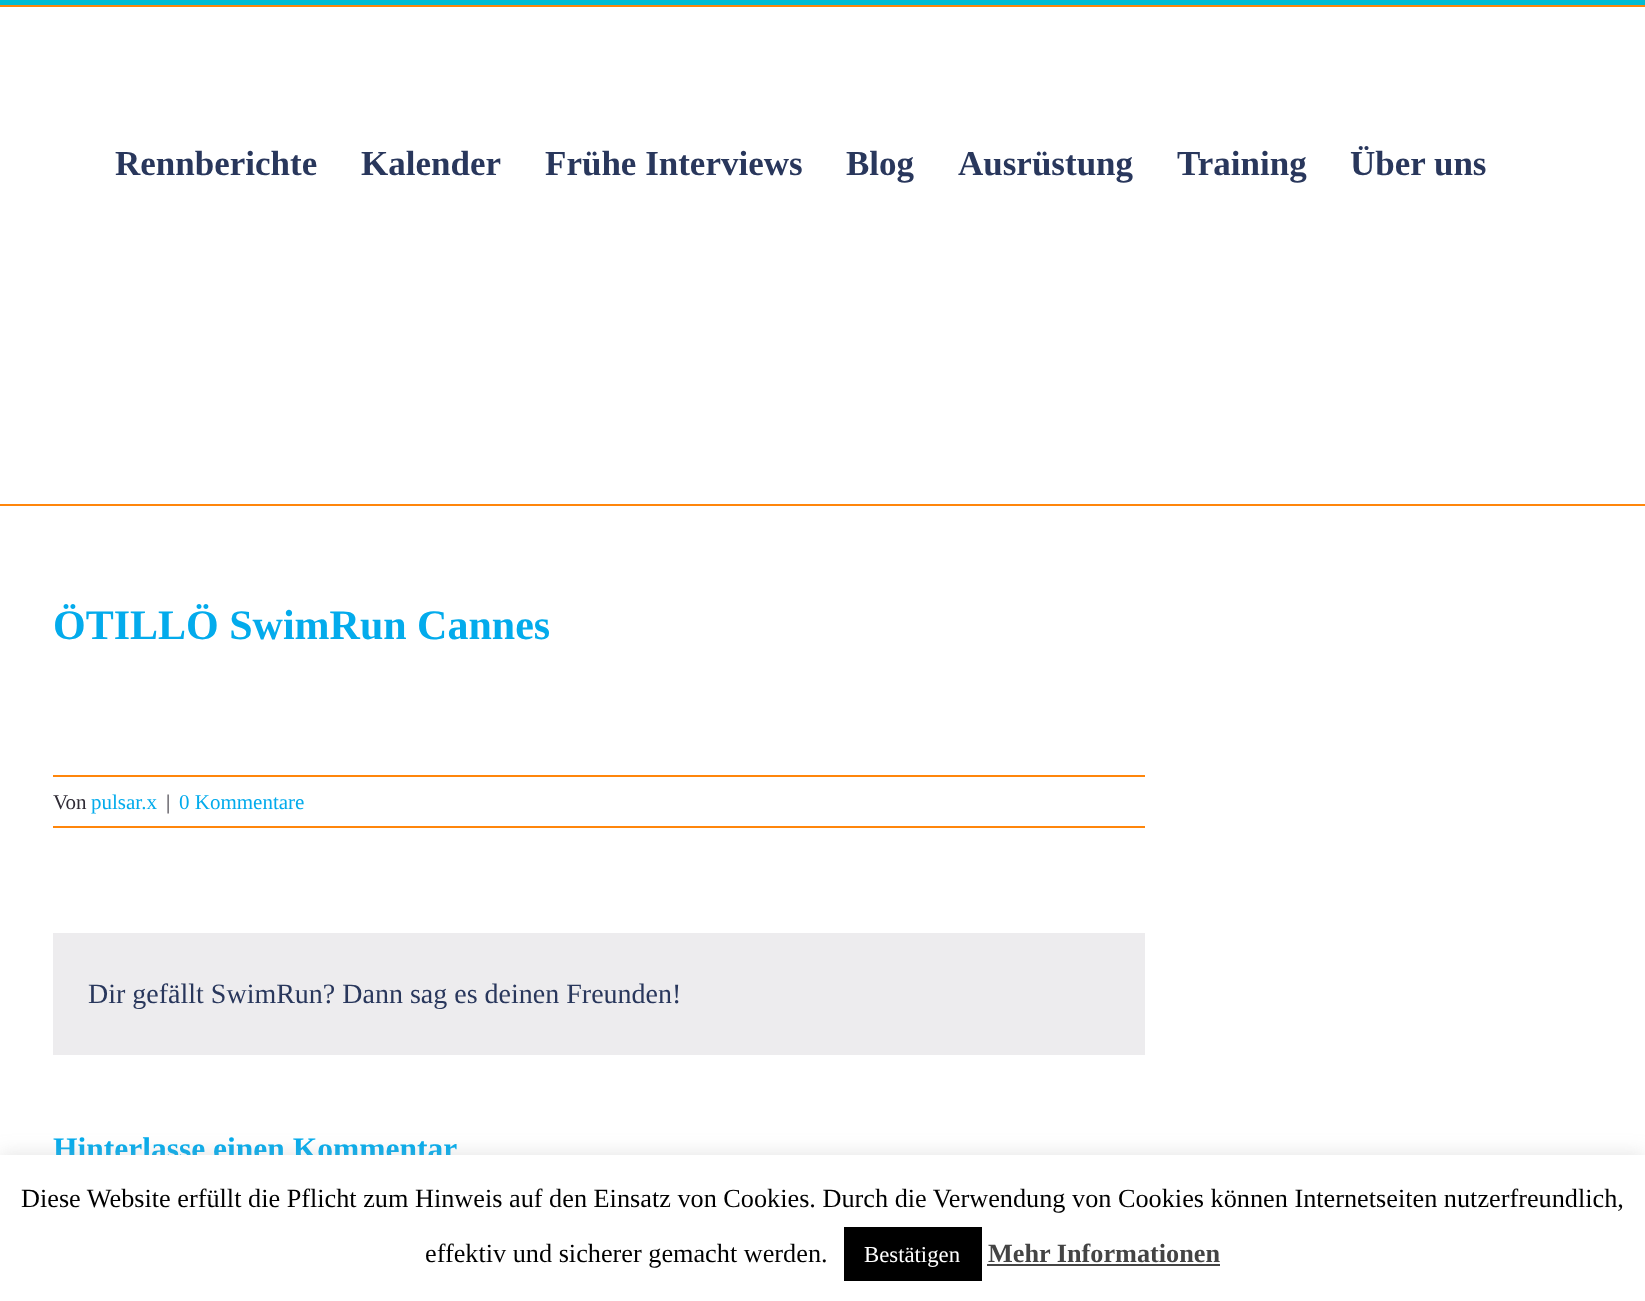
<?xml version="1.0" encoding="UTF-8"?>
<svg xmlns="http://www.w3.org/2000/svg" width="1645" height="1301">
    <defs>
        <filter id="blur1" x="-50%" y="-200%" width="200%" height="500%"><feGaussianBlur stdDeviation="9"/></filter>
    </defs>
    <rect width="100%" height="100%" fill="#FFFFFF"/>
    <rect x="0" y="0" width="1645" height="5" fill="#00BCD4"/>
    <rect x="0" y="5" width="1645" height="2" fill="#FF860B"/>
    <rect x="0" y="504" width="1645" height="2" fill="#FF860B"/>
    <text x="115" y="175" font-family="Liberation Serif" font-size="35" font-weight="700" fill="#29375C">Rennberichte</text>
    <text x="361" y="175" font-family="Liberation Serif" font-size="35" font-weight="700" fill="#29375C">Kalender</text>
    <text x="545" y="175" font-family="Liberation Serif" font-size="35" font-weight="700" fill="#29375C">Frühe Interviews</text>
    <text x="846" y="175" font-family="Liberation Serif" font-size="35" font-weight="700" fill="#29375C">Blog</text>
    <text x="958" y="175" font-family="Liberation Serif" font-size="35" font-weight="700" fill="#29375C">Ausrüstung</text>
    <text x="1177" y="175" font-family="Liberation Serif" font-size="35" font-weight="700" fill="#29375C">Training</text>
    <text x="1350" y="175" font-family="Liberation Serif" font-size="35" font-weight="700" fill="#29375C">Über uns</text>
    <text x="53" y="639" font-family="Liberation Serif" font-size="42" font-weight="700" fill="#03ABEC">ÖTILLÖ SwimRun Cannes</text>
    <rect x="53" y="775" width="1092" height="2" fill="#FF860B"/>
    <rect x="53" y="826" width="1092" height="2" fill="#FF860B"/>
    <text x="53" y="809" font-family="Liberation Serif" font-size="21" fill="#2F2B35">Von</text>
    <text x="91" y="809" font-family="Liberation Serif" font-size="21" fill="#03ABEC">pulsar.x</text>
    <text x="166" y="809" font-family="Liberation Serif" font-size="21" fill="#2F2B35">|</text>
    <text x="179" y="809" font-family="Liberation Serif" font-size="21" fill="#03ABEC">0 Kommentare</text>
    <rect x="53" y="933" width="1092" height="122" fill="#EDECEE"/>
    <text x="88" y="1003" font-family="Liberation Serif" font-size="28" fill="#29375C">Dir gefällt SwimRun? Dann sag es deinen Freunden!</text>
    <text x="53" y="1159" font-family="Liberation Serif" font-size="31.5" font-weight="700" fill="#03ABEC">Hinterlasse einen Kommentar</text>
    <rect x="0" y="1153" width="1645" height="147" fill="#ACABAB" fill-opacity="0.3" filter="url(#blur1)"/>
    <rect x="0" y="1155" width="1645" height="146" fill="#FFFFFF"/>
    <text x="21" y="1207" font-family="Liberation Serif" font-size="26.25" fill="#000000">Diese Website erfüllt die Pflicht zum Hinweis auf den Einsatz von Cookies. Durch die Verwendung von Cookies können Internetseiten nutzerfreundlich,</text>
    <text x="425" y="1262" font-family="Liberation Serif" font-size="26.25" fill="#000000">effektiv und sicherer gemacht werden.</text>
    <rect x="844" y="1227" width="138" height="54" fill="#000000"/>
    <text x="864" y="1262" font-family="Liberation Serif" font-size="22.75" fill="#FFFFFF">Bestätigen</text>
    <text x="988" y="1262" font-family="Liberation Serif" font-size="26.25" font-weight="700" fill="#444444">Mehr Informationen</text>
    <rect x="987" y="1264" width="233" height="2" fill="#444444"/>
</svg>
